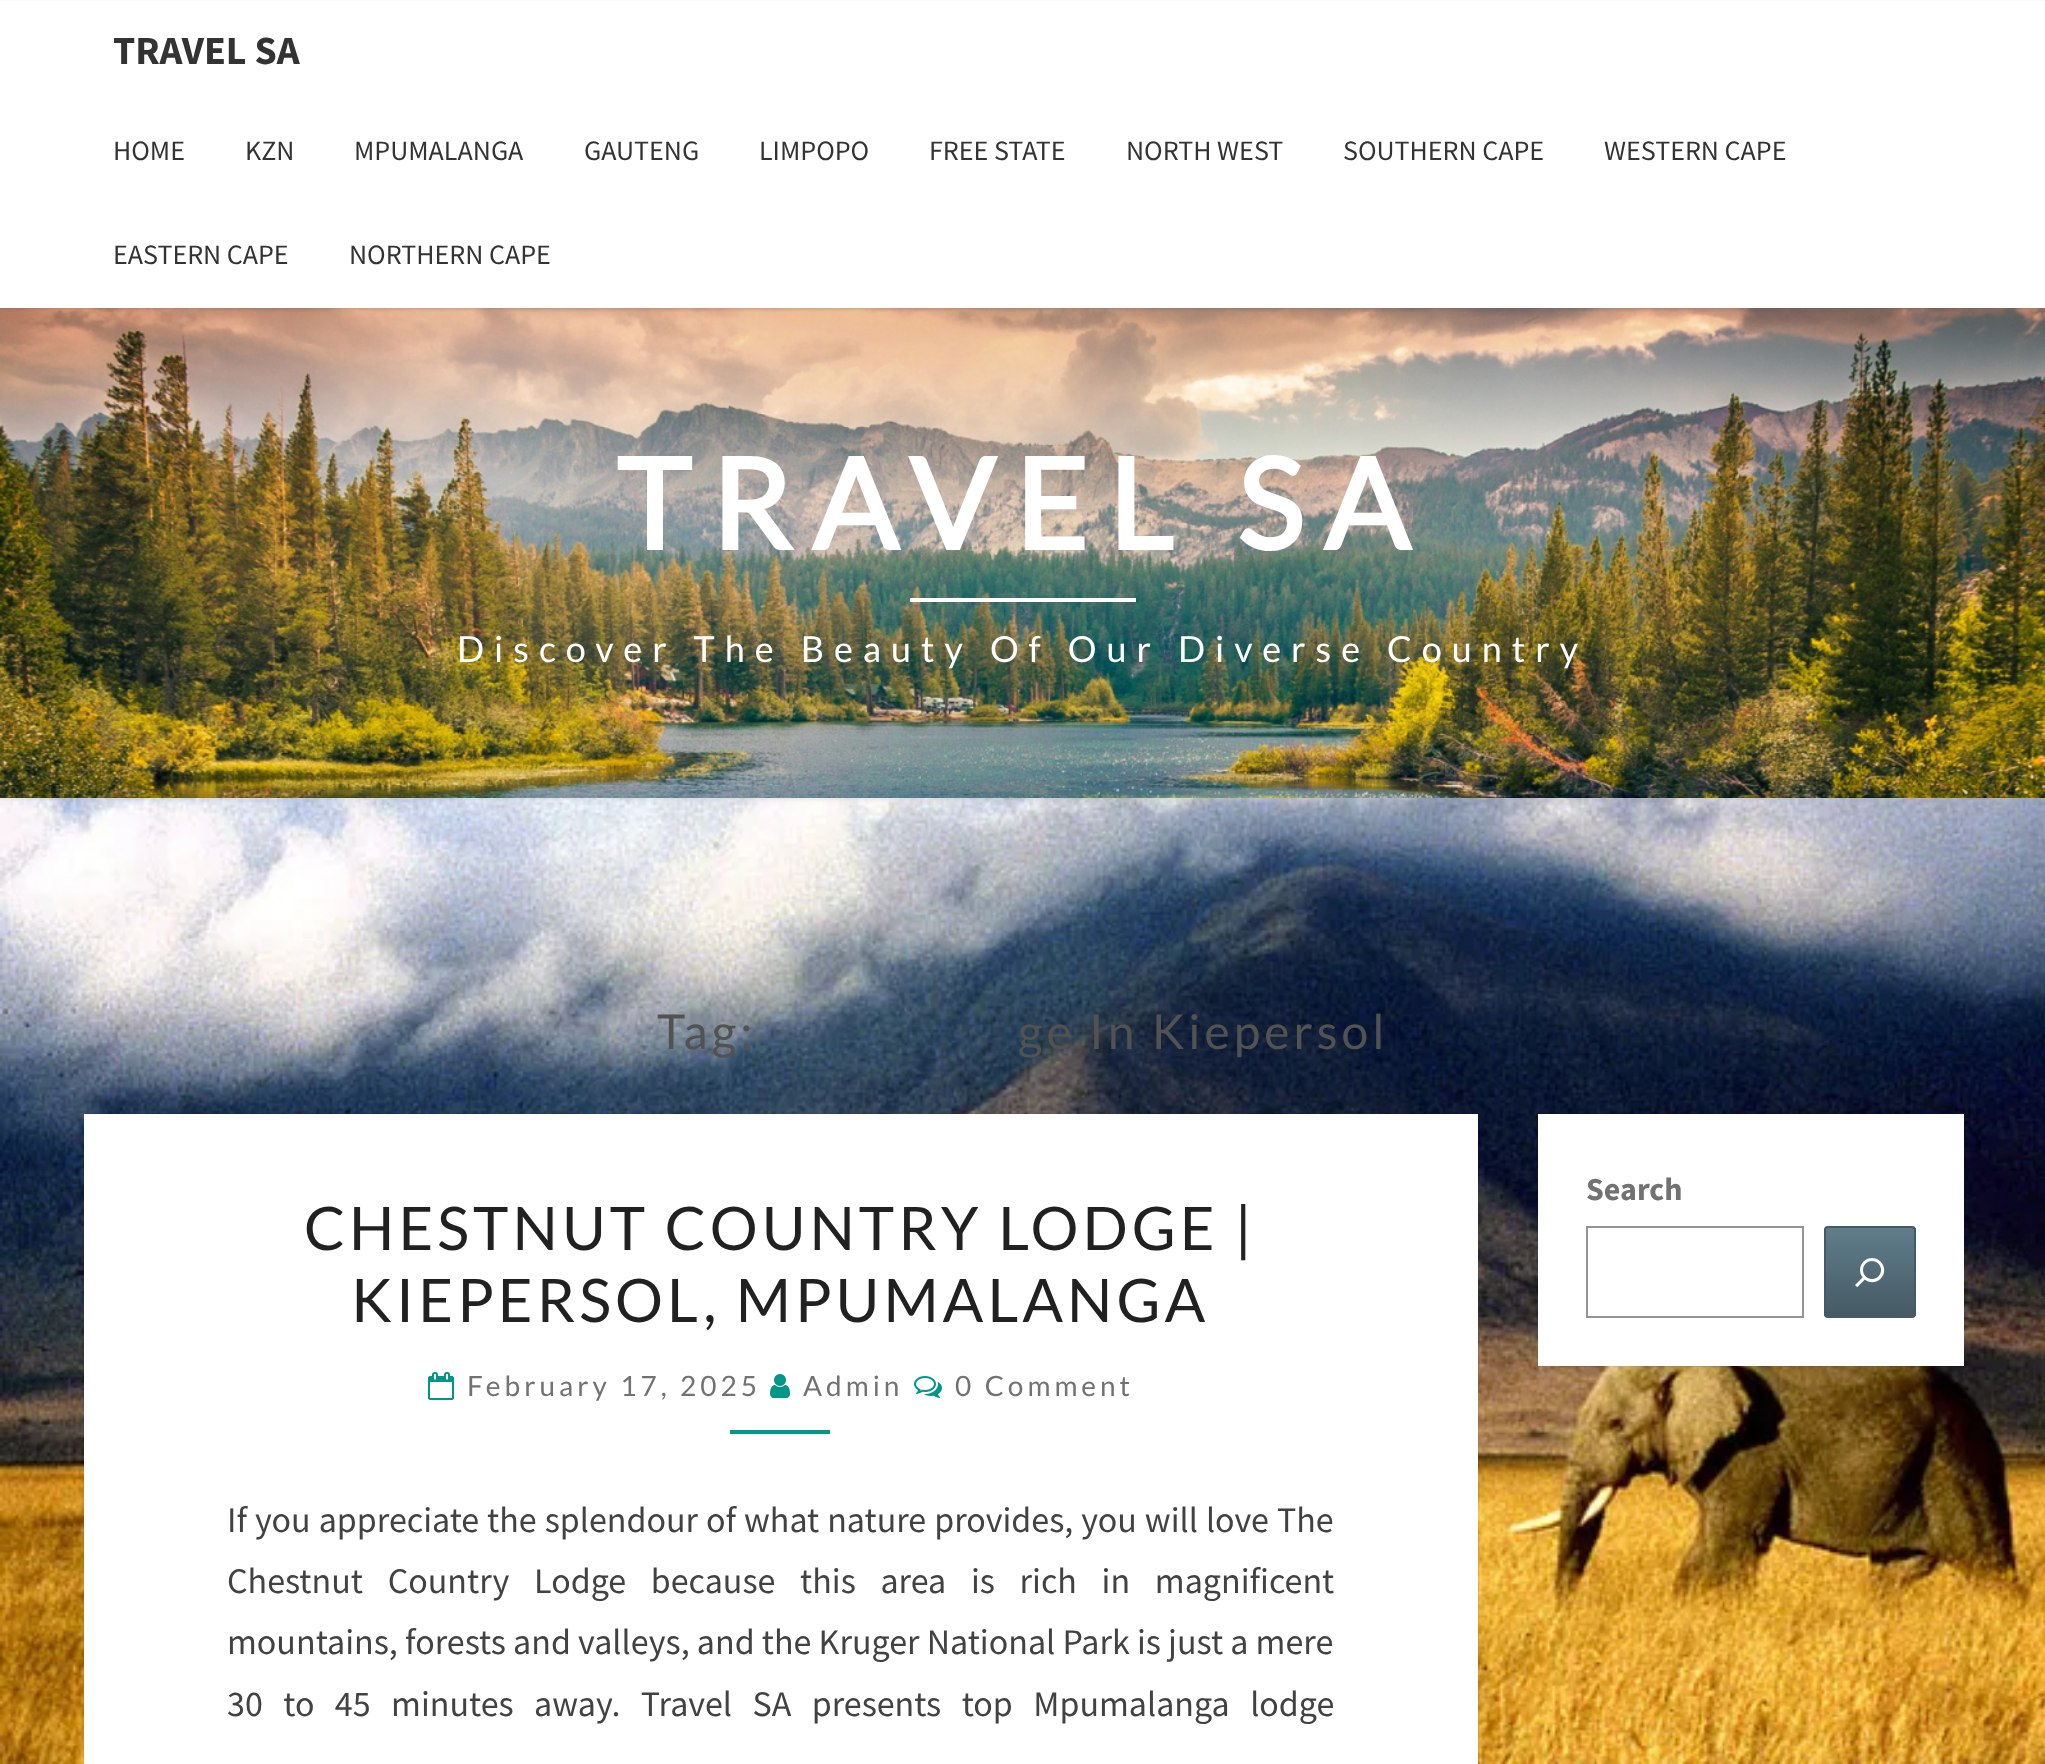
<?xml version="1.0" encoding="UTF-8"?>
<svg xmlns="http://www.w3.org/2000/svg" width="2045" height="1764">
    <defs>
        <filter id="blur1" x="-50%" y="-200%" width="200%" height="500%"><feGaussianBlur stdDeviation="2"/></filter>
        <filter id="blur2" x="-50%" y="-200%" width="200%" height="500%"><feGaussianBlur stdDeviation="1"/></filter>
        <clipPath id="clip1"><rect x="1824" y="1226" width="92" height="92" rx="4"/></clipPath>
        <linearGradient id="g1" gradientUnits="userSpaceOnUse" x1="1870" y1="1228" x2="1870" y2="1316"><stop offset="0" stop-color="#607D8B"/><stop offset="1" stop-color="#455A64"/></linearGradient>
    </defs>
    <rect width="100%" height="100%" fill="#FFFFFF"/>
    <image x="0" y="798" width="2045" height="966" href="img_01.png"/>
    <rect x="-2" y="306" width="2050" height="494" fill="#B6B6B6" fill-opacity="0.3" filter="url(#blur1)"/>
    <image x="0" y="308" width="2045" height="490" href="img_02.png"/>
    <rect x="0" y="2" width="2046" height="308" fill="#646464" fill-opacity="0.2" filter="url(#blur2)"/>
    <rect x="0" y="1" width="2045" height="307" fill="#FFFFFF"/>
    <text x="113" y="64" font-family="Source Sans Pro" font-size="40" font-weight="700" fill="#333333">TRAVEL SA</text>
    <text x="113" y="160" font-family="Source Sans Pro" font-size="28" fill="#333333">HOME</text>
    <text x="245" y="160" font-family="Source Sans Pro" font-size="28" fill="#333333">KZN</text>
    <text x="354" y="160" font-family="Source Sans Pro" font-size="28" fill="#333333">MPUMALANGA</text>
    <text x="584" y="160" font-family="Source Sans Pro" font-size="28" fill="#333333">GAUTENG</text>
    <text x="759" y="160" font-family="Source Sans Pro" font-size="28" fill="#333333">LIMPOPO</text>
    <text x="929" y="160" font-family="Source Sans Pro" font-size="28" fill="#333333">FREE STATE</text>
    <text x="1126" y="160" font-family="Source Sans Pro" font-size="28" fill="#333333">NORTH WEST</text>
    <text x="1343" y="160" font-family="Source Sans Pro" font-size="28" fill="#333333">SOUTHERN CAPE</text>
    <text x="1604" y="160" font-family="Source Sans Pro" font-size="28" fill="#333333">WESTERN CAPE</text>
    <text x="113" y="264" font-family="Source Sans Pro" font-size="28" fill="#333333">EASTERN CAPE</text>
    <text x="349" y="264" font-family="Source Sans Pro" font-size="28" fill="#333333">NORTHERN CAPE</text>
    <text x="616" y="550" font-family="Lato" font-size="126" font-weight="700" letter-spacing="20" fill="#FFFFFF">TRAVEL SA</text>
    <rect x="910" y="598" width="226" height="4" fill="#FFFFFF"/>
    <text x="457" y="662" font-family="Lato" font-size="36" letter-spacing="10" fill="#FFFFFF">Discover The Beauty Of Our Diverse Country</text>
    <text x="657" y="1049" font-family="Lato" font-size="48" letter-spacing="4" fill="#525252">Tag:</text>
    <text x="1018" y="1049" font-family="Lato" font-size="48" letter-spacing="4" fill="#525252">ge In Kiepersol</text>
    <rect x="1538" y="1114" width="426" height="252" fill="#000000" fill-opacity="0.15" filter="url(#blur2)"/>
    <rect x="1538" y="1114" width="426" height="252" fill="#FFFFFF"/>
    <text x="1586" y="1200" font-family="Source Sans Pro" font-size="32" font-weight="700" fill="#727272">Search</text>
    <rect x="1587" y="1227" width="216" height="90" fill="none" stroke="#949494" stroke-width="2"/>
    <g clip-path="url(#clip1)">
        <rect x="1824" y="1228" width="92" height="88" fill="url(#g1)"/>
    </g>
    <rect x="1825" y="1227" width="90" height="90" rx="3" fill="none" stroke="#455A64" stroke-width="2"/>
    <image x="1855" y="1258" width="30" height="30" href="img_03.png"/>
    <rect x="84" y="1114" width="1394" height="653" fill="#000000" fill-opacity="0.15" filter="url(#blur2)"/>
    <rect x="84" y="1114" width="1394" height="650" fill="#FFFFFF"/>
    <text x="304" y="1250" font-family="Lato" font-size="60" letter-spacing="4" fill="#212121">CHESTNUT COUNTRY LODGE |</text>
    <text x="351" y="1322" font-family="Lato" font-size="60" letter-spacing="4" fill="#212121">KIEPERSOL, MPUMALANGA</text>
    <image x="428" y="1372" width="26" height="28" href="img_04.png"/>
    <text x="467" y="1396" font-family="Lato" font-size="28" letter-spacing="4" fill="#727272">February 17, 2025</text>
    <image x="770" y="1374" width="20" height="24" href="img_05.png"/>
    <text x="803" y="1396" font-family="Lato" font-size="28" letter-spacing="4" fill="#727272">Admin</text>
    <image x="914" y="1376" width="28" height="22" href="img_06.png"/>
    <text x="955" y="1396" font-family="Lato" font-size="28" letter-spacing="4" fill="#727272">0 Comment</text>
    <rect x="730" y="1430" width="100" height="4" fill="#009688"/>
    <text font-family="Source Sans Pro" font-size="36" fill="#424242">
        <tspan x="227" y="1532" word-spacing="0.75">If you appreciate the splendour of what nature provides, you will love The</tspan>
        <tspan x="227" y="1593" word-spacing="17.5">Chestnut Country Lodge because this area is rich in magnificent</tspan>
        <tspan x="227" y="1654">mountains, forests and valleys, and the Kruger National Park is just a mere</tspan>
        <tspan x="227" y="1716" word-spacing="13.25">30 to 45 minutes away. Travel SA presents top Mpumalanga lodge</tspan>
    </text>
</svg>
